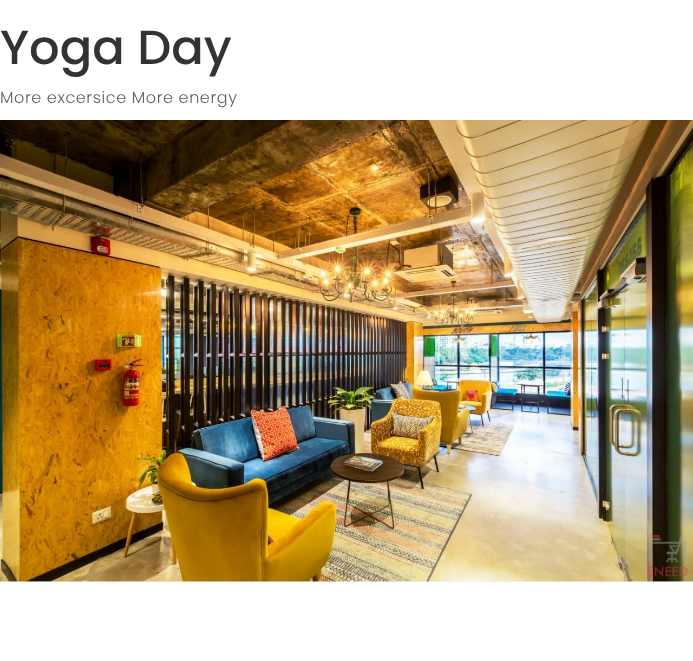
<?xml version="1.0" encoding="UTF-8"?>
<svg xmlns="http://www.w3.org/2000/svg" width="693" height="661">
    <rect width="100%" height="100%" fill="#FFFFFF"/>
    <text x="0" y="64" font-family="Poppins" font-size="48" font-weight="500" fill="#333333">Yoga Day</text>
    <text x="0" y="103" font-family="Poppins" font-size="16" font-weight="300" letter-spacing="0.6" fill="#616161">More excersice More energy</text>
    <image x="0" y="120" width="693" height="462" href="img_01.png"/>
</svg>
